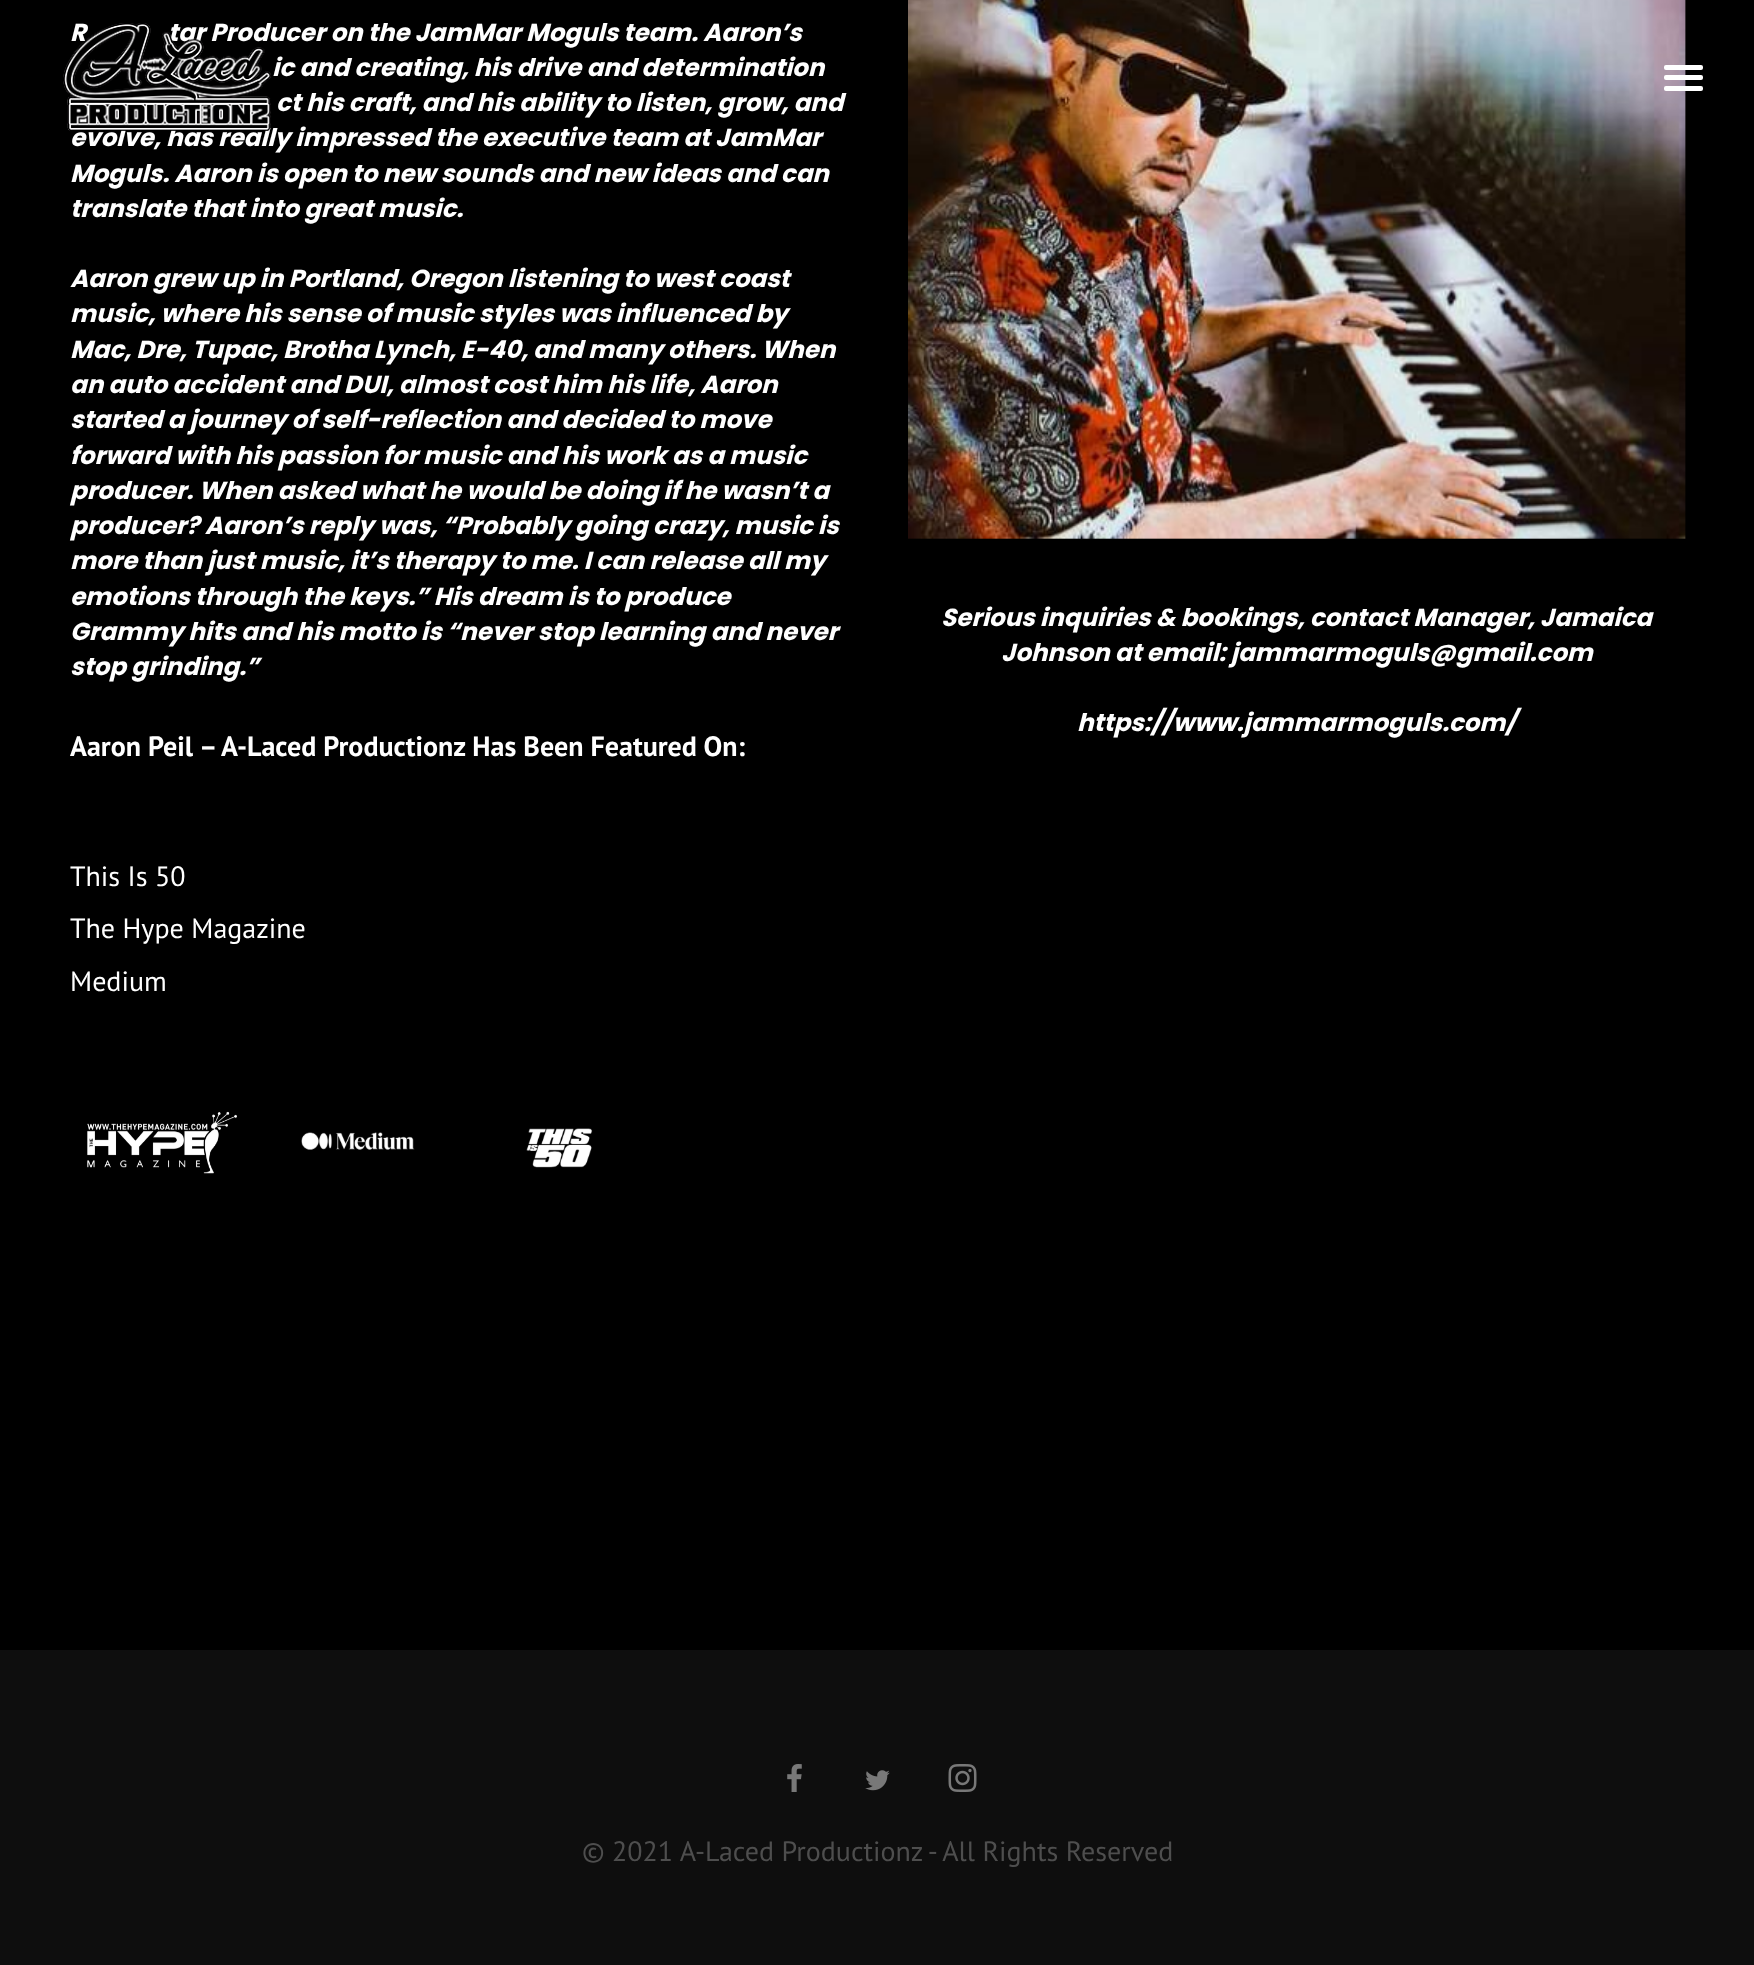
<?xml version="1.0" encoding="UTF-8"?>
<svg xmlns="http://www.w3.org/2000/svg" width="1754" height="1965">
    <rect width="100%" height="100%" fill="#0E0E0E"/>
    <rect x="0" y="0" width="1754" height="1650" fill="#000000"/>
    <text x="70" y="41" font-family="Poppins" font-size="24.5" font-weight="700" font-style="italic" fill="#FFFFFF">R</text>
    <text x="168" y="41" font-family="Poppins" font-size="24.5" font-weight="700" font-style="italic" fill="#FFFFFF">tar Producer on the JamMar Moguls team. Aaron’s</text>
    <text x="272" y="76" font-family="Poppins" font-size="24.5" font-weight="700" font-style="italic" fill="#FFFFFF">ic and creating, his drive and determination</text>
    <text x="276" y="111" font-family="Poppins" font-size="24.5" font-weight="700" font-style="italic" fill="#FFFFFF">ct his craft, and his ability to listen, grow, and</text>
    <text font-family="Poppins" font-size="24.5" font-weight="700" font-style="italic" fill="#FFFFFF">
        <tspan x="70" y="146">evolve, has really impressed the executive team at JamMar</tspan>
        <tspan x="70" y="182">Moguls. Aaron is open to new sounds and new ideas and can</tspan>
        <tspan x="70" y="217">translate that into great music.</tspan>
    </text>
    <text font-family="Poppins" font-size="24.5" font-weight="700" font-style="italic" fill="#FFFFFF">
        <tspan x="70" y="287">Aaron grew up in Portland, Oregon listening to west coast</tspan>
        <tspan x="70" y="322">music, where his sense of music styles was influenced by</tspan>
        <tspan x="70" y="358">Mac, Dre, Tupac, Brotha Lynch, E-40, and many others. When</tspan>
        <tspan x="70" y="393">an auto accident and DUI, almost cost him his life, Aaron</tspan>
        <tspan x="70" y="428">started a journey of self-reflection and decided to move</tspan>
        <tspan x="70" y="464">forward with his passion for music and his work as a music</tspan>
        <tspan x="70" y="499">producer. When asked what he would be doing if he wasn’t a</tspan>
        <tspan x="70" y="534">producer? Aaron’s reply was, “Probably going crazy, music is</tspan>
        <tspan x="70" y="569">more than just music, it’s therapy to me. I can release all my</tspan>
        <tspan x="70" y="605">emotions through the keys.” His dream is to produce</tspan>
        <tspan x="70" y="640">Grammy hits and his motto is “never stop learning and never</tspan>
        <tspan x="70" y="675">stop grinding.”</tspan>
    </text>
    <text x="70" y="756" font-family="PT Sans" font-size="28" font-weight="700" fill="#FFFFFF">Aaron Peil – A-Laced Productionz Has Been Featured On:</text>
    <text font-family="PT Sans" font-size="28" fill="#FFFFFF">
        <tspan x="70" y="886">This Is 50</tspan>
        <tspan x="70" y="938">The Hype Magazine</tspan>
        <tspan x="70" y="991">Medium</tspan>
    </text>
    <image x="87" y="1111" width="150" height="63" href="img_01.png"/>
    <image x="301" y="1132" width="114" height="18" href="img_02.png"/>
    <image x="526" y="1128" width="67" height="40" href="img_03.png"/>
    <image x="908" y="0" width="778" height="539" href="img_04.png"/>
    <text x="941" y="626" font-family="Poppins" font-size="24.5" font-weight="700" font-style="italic" fill="#FFFFFF">Serious inquiries &amp; bookings, contact Manager, Jamaica</text>
    <text x="1001" y="661" font-family="Poppins" font-size="24.5" font-weight="700" font-style="italic" fill="#FFFFFF">Johnson at email: jammarmoguls@gmail.com</text>
    <text x="1077" y="731" font-family="Poppins" font-size="24.5" font-weight="700" font-style="italic" fill="#FFFFFF">https://www.jammarmoguls.com/</text>
    <image x="63" y="23" width="209" height="108" href="img_05.png"/>
    <rect x="1664" y="65" width="39" height="5" rx="2" fill="#FFFFFF"/>
    <rect x="1664" y="75" width="39" height="5" rx="2" fill="#FFFFFF"/>
    <rect x="1664" y="86" width="39" height="5" rx="2" fill="#FFFFFF"/>
    <image x="787" y="1764" width="15" height="28" href="img_06.png"/>
    <image x="865" y="1770" width="25" height="21" href="img_07.png"/>
    <image x="948" y="1764" width="29" height="28" href="img_08.png"/>
    <text x="582" y="1861" font-family="PT Sans" font-size="28" fill="#4E4E4E">© 2021 A-Laced Productionz - All Rights Reserved</text>
</svg>
